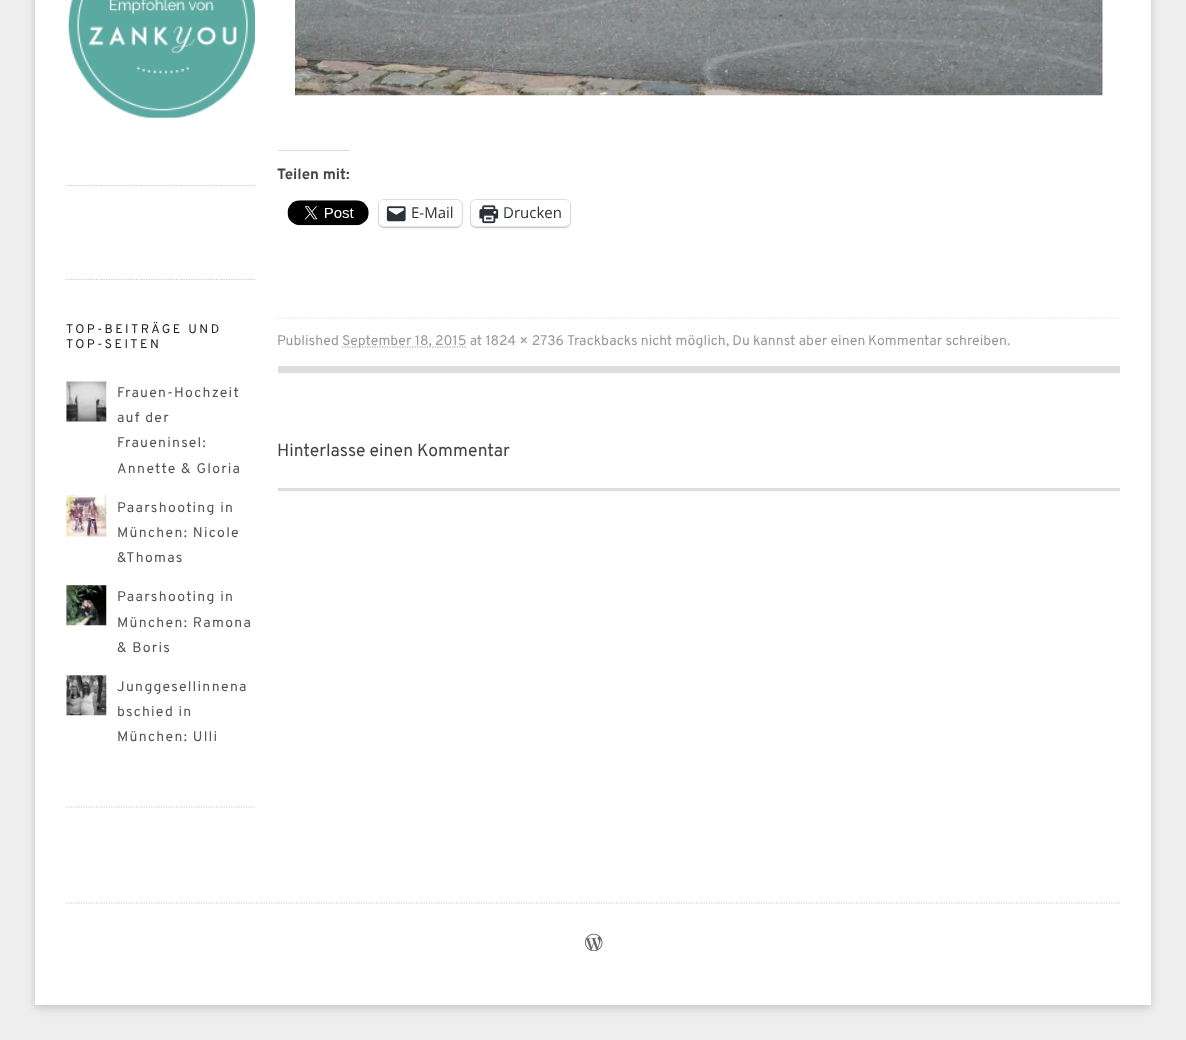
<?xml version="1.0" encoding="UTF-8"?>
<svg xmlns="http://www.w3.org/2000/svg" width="1186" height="1040">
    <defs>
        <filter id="blur1" x="-50%" y="-200%" width="200%" height="500%"><feGaussianBlur stdDeviation="4"/></filter>
        <filter id="blur2" x="-50%" y="-200%" width="200%" height="500%"><feGaussianBlur stdDeviation="1"/></filter>
    </defs>
    <rect width="100%" height="100%" fill="#EEEEEE"/>
    <rect x="35" y="-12" width="1116" height="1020" fill="#646464" fill-opacity="0.3" filter="url(#blur1)"/>
    <rect x="35" y="0" width="1116" height="1005" fill="#FFFFFF"/>
    <path d="M 66 185.5 H 256" fill="none" stroke="#CCCCCC" stroke-width="1.2" stroke-dasharray="1.25 1.25"/>
    <image x="68" y="0" width="187" height="118" href="img_01.png"/>
    <path d="M 66 279.5 H 256" fill="none" stroke="#CCCCCC" stroke-width="1.2" stroke-dasharray="1.25 1.25"/>
    <path d="M 66 807 H 256" fill="none" stroke="#CCCCCC" stroke-width="1.2" stroke-dasharray="1.25 1.25"/>
    <text font-family="Overpass" font-size="12.5" letter-spacing="2.5" fill="#222222">
        <tspan x="66" y="333">TOP-BEITRÄGE UND</tspan>
        <tspan x="66" y="348">TOP-SEITEN</tspan>
    </text>
    <image x="66" y="381" width="41" height="41" href="img_02.png"/>
    <text font-family="Overpass" font-size="14" letter-spacing="1.25" fill="#555555">
        <tspan x="117" y="397">Frauen-Hochzeit</tspan>
        <tspan x="117" y="422">auf der</tspan>
        <tspan x="117" y="447">Fraueninsel:</tspan>
        <tspan x="117" y="473">Annette &amp; Gloria</tspan>
    </text>
    <image x="66" y="495" width="41" height="42" href="img_03.png"/>
    <text font-family="Overpass" font-size="14" letter-spacing="1.25" fill="#555555">
        <tspan x="117" y="512">Paarshooting in</tspan>
        <tspan x="117" y="537">München: Nicole</tspan>
        <tspan x="117" y="562">&amp;Thomas</tspan>
    </text>
    <image x="66" y="585" width="41" height="41" href="img_04.png"/>
    <text font-family="Overpass" font-size="14" letter-spacing="1.25" fill="#555555">
        <tspan x="117" y="601">Paarshooting in</tspan>
        <tspan x="117" y="627">München: Ramona</tspan>
        <tspan x="117" y="652">&amp; Boris</tspan>
    </text>
    <image x="66" y="675" width="41" height="41" href="img_05.png"/>
    <text font-family="Overpass" font-size="14" letter-spacing="1.25" fill="#555555">
        <tspan x="117" y="691">Junggesellinnena</tspan>
        <tspan x="117" y="716">bschied in</tspan>
        <tspan x="117" y="741">München: Ulli</tspan>
    </text>
    <rect x="278" y="366" width="842" height="7" fill="#DDDDDD"/>
    <image x="295" y="0" width="808" height="96" href="img_06.png"/>
    <rect x="278" y="150" width="72" height="1" fill="#DCDCDE"/>
    <text x="277" y="179" font-family="Overpass" font-size="15" font-weight="700" fill="#424242">Teilen mit:</text>
    <image x="287" y="200" width="82" height="26" href="img_07.png"/>
    <rect x="378.5" y="199.5" width="84" height="28" rx="5.5" fill="none" stroke="#E0E0E0"/>
    <rect x="379" y="201" width="82" height="27" rx="5" fill="#000000" fill-opacity="0.12" filter="url(#blur2)"/>
    <rect x="379" y="200" width="82" height="26" rx="5" fill="#FFFFFF"/>
    <image x="386" y="206" width="20" height="16" href="img_08.png"/>
    <text x="411" y="218" font-family="Open Sans" font-size="15" fill="#2C3338">E-Mail</text>
    <rect x="470.5" y="199.5" width="100" height="28" rx="5.5" fill="none" stroke="#E0E0E0"/>
    <rect x="471" y="201" width="99" height="27" rx="5" fill="#000000" fill-opacity="0.12" filter="url(#blur2)"/>
    <rect x="471" y="200" width="99" height="26" rx="5" fill="#FFFFFF"/>
    <image x="479" y="205" width="20" height="19" href="img_09.png"/>
    <text x="503" y="218" font-family="Open Sans" font-size="15" fill="#2C3338">Drucken</text>
    <path d="M 277.5 318 H 1120" fill="none" stroke="#DDDDDD" stroke-width="1.2" stroke-dasharray="1.25 1.25"/>
    <text x="277" y="345" font-family="Overpass" font-size="14" fill="#999999">Published</text>
    <path d="M 342 347 H 466.5" fill="none" stroke="#999999" stroke-width="1.2" stroke-dasharray="1.25 1.25"/>
    <text x="342" y="345" font-family="Overpass" font-size="14" fill="#999999">September 18, 2015 at 1824 × 2736</text>
    <text x="567" y="345" font-family="Overpass" font-size="14" fill="#999999">Trackbacks nicht möglich, Du kannst aber einen</text>
    <text x="868" y="345" font-family="Overpass" font-size="14" fill="#999999">Kommentar schreiben.</text>
    <text x="277" y="456" font-family="Overpass" font-size="17.5" fill="#424242">Hinterlasse einen Kommentar</text>
    <rect x="278" y="488" width="842" height="3" fill="#DCDCDE"/>
    <path d="M 66 903 H 1120" fill="none" stroke="#CCCCCC" stroke-width="1.2" stroke-dasharray="1.25 1.25"/>
    <image x="585" y="933" width="18" height="18" href="img_10.png"/>
</svg>
